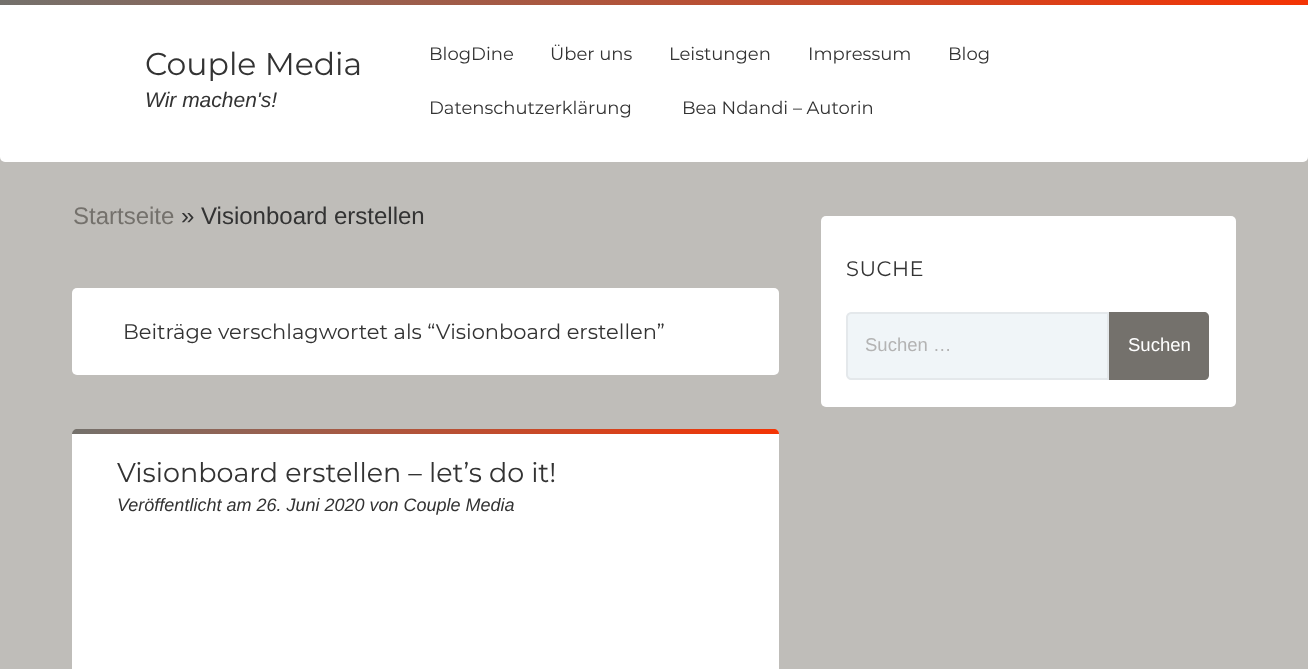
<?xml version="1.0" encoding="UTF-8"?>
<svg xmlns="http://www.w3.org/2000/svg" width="1308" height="669">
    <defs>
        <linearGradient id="g1" gradientUnits="userSpaceOnUse" x1="0" y1="2.3" x2="1308" y2="2.2"><stop offset="0" stop-color="#74716C"/><stop offset="1" stop-color="#F43404"/></linearGradient>
        <linearGradient id="g2" gradientUnits="userSpaceOnUse" x1="72" y1="431" x2="779" y2="431"><stop offset="0" stop-color="#74716C"/><stop offset="1" stop-color="#F43404"/></linearGradient>
    </defs>
    <rect width="100%" height="100%" fill="#BFBDB9"/>
    <rect x="0" y="0" width="1308" height="162" rx="5" fill="#FFFFFF"/>
    <rect x="0" y="0" width="1308" height="5" fill="url(#g1)"/>
    <text x="145" y="75" font-family="Montserrat" font-size="31.5" fill="#333333">Couple Media</text>
    <text x="145" y="107" font-family="Liberation Sans" font-size="21" font-style="italic" fill="#333333">Wir machen's!</text>
    <text x="429" y="60" font-family="Montserrat" font-size="18" fill="#333333">BlogDine</text>
    <text x="550" y="60" font-family="Montserrat" font-size="18" fill="#333333">Über uns</text>
    <text x="669" y="60" font-family="Montserrat" font-size="18" fill="#333333">Leistungen</text>
    <text x="808" y="60" font-family="Montserrat" font-size="18" fill="#333333">Impressum</text>
    <text x="948" y="60" font-family="Montserrat" font-size="18" fill="#333333">Blog</text>
    <text x="429" y="114" font-family="Montserrat" font-size="18" fill="#333333">Datenschutzerklärung</text>
    <text x="682" y="114" font-family="Montserrat" font-size="18" fill="#333333">Bea Ndandi – Autorin</text>
    <text x="73" y="224" font-family="Liberation Sans" font-size="24" fill="#74716C">Startseite</text>
    <text x="181" y="224" font-family="Liberation Sans" font-size="24" fill="#333333">» Visionboard erstellen</text>
    <rect x="72" y="288" width="707" height="87" rx="5" fill="#FFFFFF"/>
    <text x="123" y="339" font-family="Montserrat" font-size="21" fill="#333333">Beiträge verschlagwortet als “Visionboard erstellen”</text>
    <rect x="72" y="429" width="707" height="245" rx="5" fill="#FFFFFF"/>
    <path d="M 77 429 H 774 C 777 429 779 431 779 434 H 72 C 72 431 74 429 77 429 Z" fill="url(#g2)"/>
    <text x="117" y="482" font-family="Montserrat" font-size="27" fill="#333333">Visionboard erstellen – let’s do it!</text>
    <text x="117" y="511" font-family="Liberation Sans" font-size="18" font-style="italic" fill="#333333">Veröffentlicht am 26. Juni 2020 von Couple Media</text>
    <rect x="821" y="216" width="415" height="191" rx="5" fill="#FFFFFF"/>
    <text x="846" y="276" font-family="Montserrat" font-size="21" letter-spacing="0.5" fill="#333333">SUCHE</text>
    <path d="M 851 313 H 1108 V 379 H 851 C 849 379 847 377 847 375 V 317 C 847 315 849 313 851 313 Z" fill="#F0F5F8" stroke="#E4E8EB" stroke-width="2"/>
    <text x="865" y="351" font-family="Liberation Sans" font-size="18.5" fill="#B3B3B3">Suchen …</text>
    <path d="M 1109 312 H 1204 C 1207 312 1209 314 1209 317 V 375 C 1209 378 1207 380 1204 380 H 1109 Z" fill="#74716C"/>
    <text x="1128" y="351" font-family="Liberation Sans" font-size="18.5" fill="#FFFFFF">Suchen</text>
</svg>
